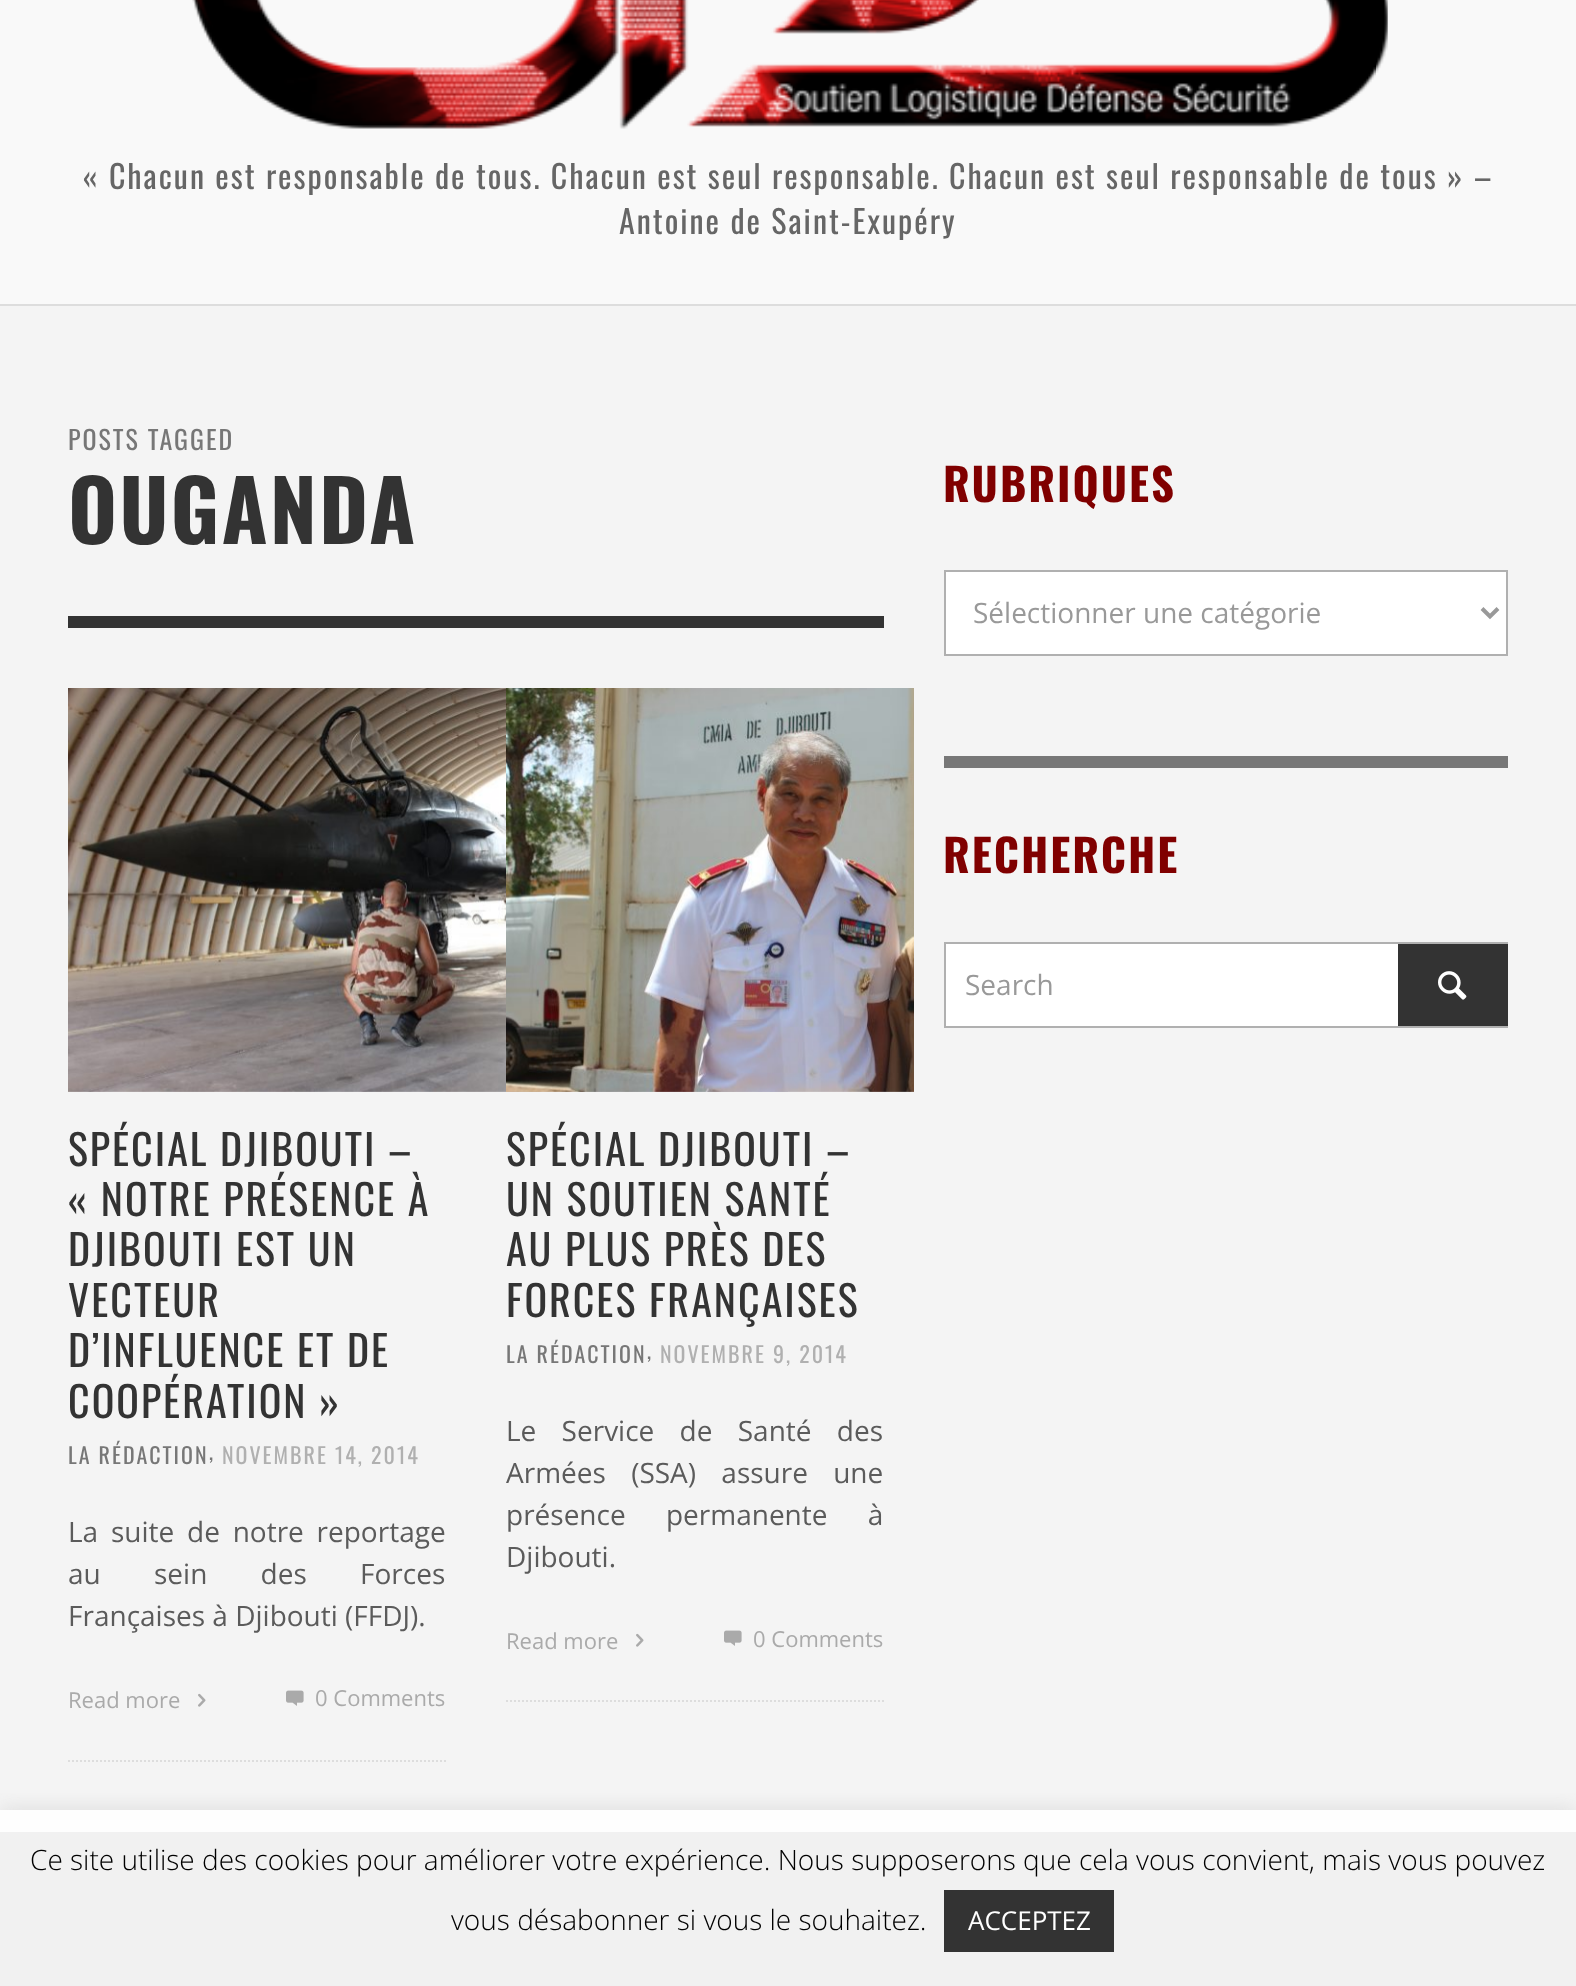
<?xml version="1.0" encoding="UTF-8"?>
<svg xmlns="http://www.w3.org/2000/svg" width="1576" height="1986">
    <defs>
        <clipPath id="clip1"><rect x="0" y="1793" width="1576" height="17"/></clipPath>
        <filter id="blur1" x="-50%" y="-200%" width="200%" height="500%"><feGaussianBlur stdDeviation="10"/></filter>
    </defs>
    <rect width="100%" height="100%" fill="#F1F1F1"/>
    <rect x="0" y="306" width="1576" height="1504" fill="#F4F4F4"/>
    <rect x="0" y="1810" width="1576" height="22" fill="#FEFEFE"/>
    <rect x="0" y="0" width="1576" height="304" fill="#F9F9F9"/>
    <rect x="0" y="304" width="1576" height="2" fill="#DDDDDD"/>
    <image x="192" y="0" width="1196" height="129" href="img_01.png"/>
    <text x="83" y="189" font-family="Oswald" font-size="32" letter-spacing="2" fill="#666666">« Chacun est responsable de tous. Chacun est seul responsable. Chacun est seul responsable de tous » –</text>
    <text x="619" y="234" font-family="Oswald" font-size="32" letter-spacing="2" fill="#666666">Antoine de Saint-Exupéry</text>
    <text x="68" y="450" font-family="Oswald" font-size="26" letter-spacing="2" fill="#777777">POSTS TAGGED</text>
    <text x="68" y="544" font-family="Oswald" font-size="84" font-weight="700" letter-spacing="2" fill="#333333">OUGANDA</text>
    <rect x="68" y="616" width="816" height="12" fill="#333333"/>
    <path d="M 68 1761 H 446" fill="none" stroke="#DDDDDD" stroke-width="2" stroke-dasharray="2 2"/>
    <image x="68" y="688" width="720" height="404" href="img_02.png"/>
    <text font-family="Oswald" font-size="42" letter-spacing="2" fill="#333333">
        <tspan x="68" y="1166">SPÉCIAL DJIBOUTI –</tspan>
        <tspan x="68" y="1216">« NOTRE PRÉSENCE À</tspan>
        <tspan x="68" y="1266">DJIBOUTI EST UN</tspan>
        <tspan x="68" y="1317">VECTEUR</tspan>
        <tspan x="68" y="1367">D’INFLUENCE ET DE</tspan>
        <tspan x="68" y="1418">COOPÉRATION »</tspan>
    </text>
    <text x="68" y="1464" font-family="Oswald" font-size="22" letter-spacing="2" fill="#777777">LA RÉDACTION</text>
    <text x="209" y="1460" font-family="Oswald" font-size="22" letter-spacing="2" fill="#777777">,</text>
    <text x="222" y="1464" font-family="Oswald" font-size="22" letter-spacing="2" fill="#B0B0B0">NOVEMBRE 14, 2014</text>
    <text font-family="Open Sans" font-size="28" fill="#5B5B5B">
        <tspan x="68" y="1542" word-spacing="5.5">La suite de notre reportage</tspan>
        <tspan x="68" y="1584" word-spacing="46">au sein des Forces</tspan>
        <tspan x="68" y="1626">Françaises à Djibouti (FFDJ).</tspan>
    </text>
    <text x="68" y="1708" font-family="Open Sans" font-size="22" fill="#AAAAAA">Read more</text>
    <image x="198" y="1693" width="8" height="14" href="img_03.png"/>
    <image x="286" y="1690" width="18" height="16" href="img_04.png"/>
    <text x="315" y="1706" font-family="Open Sans" font-size="22" fill="#AAAAAA">0 Comments</text>
    <path d="M 506 1701 H 884" fill="none" stroke="#DDDDDD" stroke-width="2" stroke-dasharray="2 2"/>
    <image x="506" y="688" width="408" height="404" href="img_05.png"/>
    <text font-family="Oswald" font-size="42" letter-spacing="2" fill="#333333">
        <tspan x="506" y="1166">SPÉCIAL DJIBOUTI –</tspan>
        <tspan x="506" y="1216">UN SOUTIEN SANTÉ</tspan>
        <tspan x="506" y="1266">AU PLUS PRÈS DES</tspan>
        <tspan x="506" y="1317">FORCES FRANÇAISES</tspan>
    </text>
    <text x="506" y="1363" font-family="Oswald" font-size="22" letter-spacing="2" fill="#777777">LA RÉDACTION</text>
    <text x="647" y="1359" font-family="Oswald" font-size="22" letter-spacing="2" fill="#777777">,</text>
    <text x="660" y="1363" font-family="Oswald" font-size="22" letter-spacing="2" fill="#B0B0B0">NOVEMBRE 9, 2014</text>
    <text font-family="Open Sans" font-size="28" fill="#5B5B5B">
        <tspan x="506" y="1441" word-spacing="18">Le Service de Santé des</tspan>
        <tspan x="506" y="1483" word-spacing="18">Armées (SSA) assure une</tspan>
        <tspan x="506" y="1525" word-spacing="33">présence permanente à</tspan>
        <tspan x="506" y="1567">Djibouti.</tspan>
    </text>
    <text x="506" y="1649" font-family="Open Sans" font-size="22" fill="#AAAAAA">Read more</text>
    <image x="636" y="1633" width="8" height="14" href="img_03.png"/>
    <image x="724" y="1630" width="18" height="16" href="img_04.png"/>
    <text x="753" y="1647" font-family="Open Sans" font-size="22" fill="#AAAAAA">0 Comments</text>
    <text x="943" y="502" font-family="Oswald" font-size="44.75" font-weight="700" letter-spacing="2" fill="#800000">RUBRIQUES</text>
    <rect x="945" y="571" width="562" height="84" fill="#FFFFFF" stroke="#B0B0B0" stroke-width="2"/>
    <path d="M 1482 608.5 L 1490 616.5 L 1498 608.5" fill="none" stroke="#999999" stroke-width="4"/>
    <text x="973" y="623" font-family="Open Sans" font-size="28" fill="#999999">Sélectionner une catégorie</text>
    <rect x="944" y="756" width="564" height="12" fill="#777777"/>
    <text x="943" y="873" font-family="Oswald" font-size="44.75" font-weight="700" letter-spacing="2" fill="#800000">RECHERCHE</text>
    <rect x="946" y="944" width="452" height="82" fill="#FFFFFF"/>
    <rect x="945" y="943" width="562" height="84" fill="none" stroke="#B0B0B0" stroke-width="2"/>
    <text x="965" y="995" font-family="Open Sans" font-size="28" fill="#999999">Search</text>
    <rect x="1398" y="944" width="110" height="82" fill="#333333"/>
    <image x="1438" y="971" width="29" height="29" href="img_06.png"/>
    <g clip-path="url(#clip1)">
        <rect x="0" y="1808" width="1576" height="176" fill="#ACABAB" fill-opacity="0.3" filter="url(#blur1)"/>
    </g>
    <text x="30" y="1870" font-family="Open Sans" font-size="28" font-weight="300" fill="#000000">Ce site utilise des cookies pour améliorer votre expérience. Nous supposerons que cela vous convient, mais vous pouvez</text>
    <text x="451" y="1930" font-family="Open Sans" font-size="28" font-weight="300" fill="#000000">vous désabonner si vous le souhaitez.</text>
    <rect x="944" y="1890" width="170" height="62" fill="#333333"/>
    <text x="968" y="1930" font-family="Open Sans" font-size="26" fill="#FFFFFF">ACCEPTEZ</text>
</svg>
